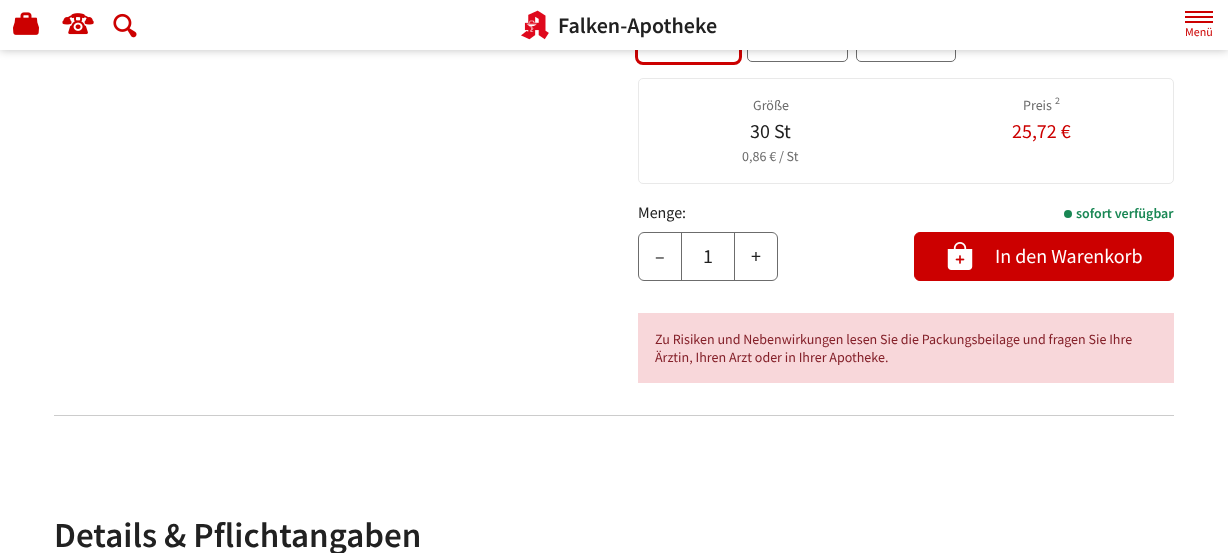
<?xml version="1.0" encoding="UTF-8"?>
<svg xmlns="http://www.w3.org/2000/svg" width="1228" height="553">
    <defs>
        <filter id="blur1" x="-50%" y="-200%" width="200%" height="500%"><feGaussianBlur stdDeviation="5"/></filter>
    </defs>
    <rect width="100%" height="100%" fill="#FFFFFF"/>
    <rect x="636.5" y="2.5" width="104" height="61" rx="6.5" fill="none" stroke="#CC0000" stroke-width="3"/>
    <rect x="747.5" y="4.5" width="100" height="57" rx="4.5" fill="none" stroke="#6C6C6C"/>
    <rect x="856.5" y="4.5" width="99" height="57" rx="4.5" fill="none" stroke="#6C6C6C"/>
    <rect x="0" y="0" width="1228" height="50" fill="#000000" fill-opacity="0.25" filter="url(#blur1)"/>
    <rect x="0" y="0" width="1228" height="50" fill="#FFFFFF"/>
    <image x="521" y="10" width="28" height="30" href="img_01.png"/>
    <text x="558" y="33" font-family="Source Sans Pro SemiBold" font-size="22" font-weight="600" fill="#212121">Falken-Apotheke</text>
    <image x="13" y="12" width="26" height="23" href="img_02.png"/>
    <image x="62" y="13" width="32" height="22" href="img_03.png"/>
    <image x="113" y="13" width="24" height="25" href="img_04.png"/>
    <rect x="1185" y="16" width="28" height="2" fill="#CC0000"/>
    <rect x="1185" y="11" width="28" height="2" fill="#CC0000"/>
    <rect x="1185" y="21" width="28" height="2" fill="#CC0000"/>
    <text x="1185" y="36" font-family="Source Sans Pro" font-size="12" fill="#CC0000">Menü</text>
    <rect x="638.5" y="78.5" width="535" height="105" rx="4.5" fill="none" stroke="#E9E9E9"/>
    <text x="753" y="110" font-family="Source Sans Pro" font-size="14" fill="#6C6C6C">Größe</text>
    <text x="750" y="138" font-family="Source Sans Pro" font-size="20" fill="#212121">30 St</text>
    <text x="742" y="161" font-family="Source Sans Pro" font-size="14" fill="#6C6C6C">0,86 € / St</text>
    <text x="1023" y="110" font-family="Source Sans Pro" font-size="14" fill="#6C6C6C">Preis</text>
    <text x="1055" y="104" font-family="Source Sans Pro" font-size="10" fill="#6C6C6C">2</text>
    <text x="1012" y="138" font-family="Source Sans Pro" font-size="20" fill="#CC0000">25,72 €</text>
    <text x="638" y="218" font-family="Source Sans Pro" font-size="16" fill="#212121">Menge:</text>
    <circle cx="1068" cy="214" r="4" fill="#198754"/>
    <text x="1076" y="218" font-family="Source Sans Pro SemiBold" font-size="14" font-weight="600" fill="#198754">sofort verfügbar</text>
    <rect x="681.5" y="232.5" width="53" height="48" fill="none" stroke="#6C6C6C"/>
    <path d="M 644 232.5 H 681.5 V 280.5 H 644 C 641 280.5 638.5 278 638.5 275 V 238 C 638.5 235 641 232.5 644 232.5 Z" fill="none" stroke="#6C6C6C"/>
    <text x="655" y="263" font-family="Source Sans Pro" font-size="20" fill="#212121">–</text>
    <text x="703" y="263" font-family="Source Sans Pro" font-size="20" fill="#212121">1</text>
    <path d="M 734.5 232.5 H 772 C 775 232.5 777.5 235 777.5 238 V 275 C 777.5 278 775 280.5 772 280.5 H 734.5 Z" fill="none" stroke="#6C6C6C"/>
    <text x="751" y="263" font-family="Source Sans Pro" font-size="20" fill="#212121">+</text>
    <rect x="914.5" y="232.5" width="259" height="48" rx="5.5" fill="#CC0000" stroke="#CC0000"/>
    <image x="947" y="242" width="26" height="28" href="img_05.png"/>
    <text x="995" y="263" font-family="Source Sans Pro" font-size="20" fill="#FFFFFF">In den Warenkorb</text>
    <rect x="638" y="313" width="536" height="70" fill="#F8D7DA"/>
    <text font-family="Source Sans Pro" font-size="14" fill="#842029">
        <tspan x="655" y="344">Zu Risiken und Nebenwirkungen lesen Sie die Packungsbeilage und fragen Sie Ihre</tspan>
        <tspan x="655" y="362">Ärztin, Ihren Arzt oder in Ihrer Apotheke.</tspan>
    </text>
    <rect x="54" y="415" width="1120" height="1" fill="#CCCCCC"/>
    <text x="54" y="547" font-family="Source Sans Pro SemiBold" font-size="35" font-weight="600" fill="#212121">Details &amp; Pflichtangaben</text>
</svg>
